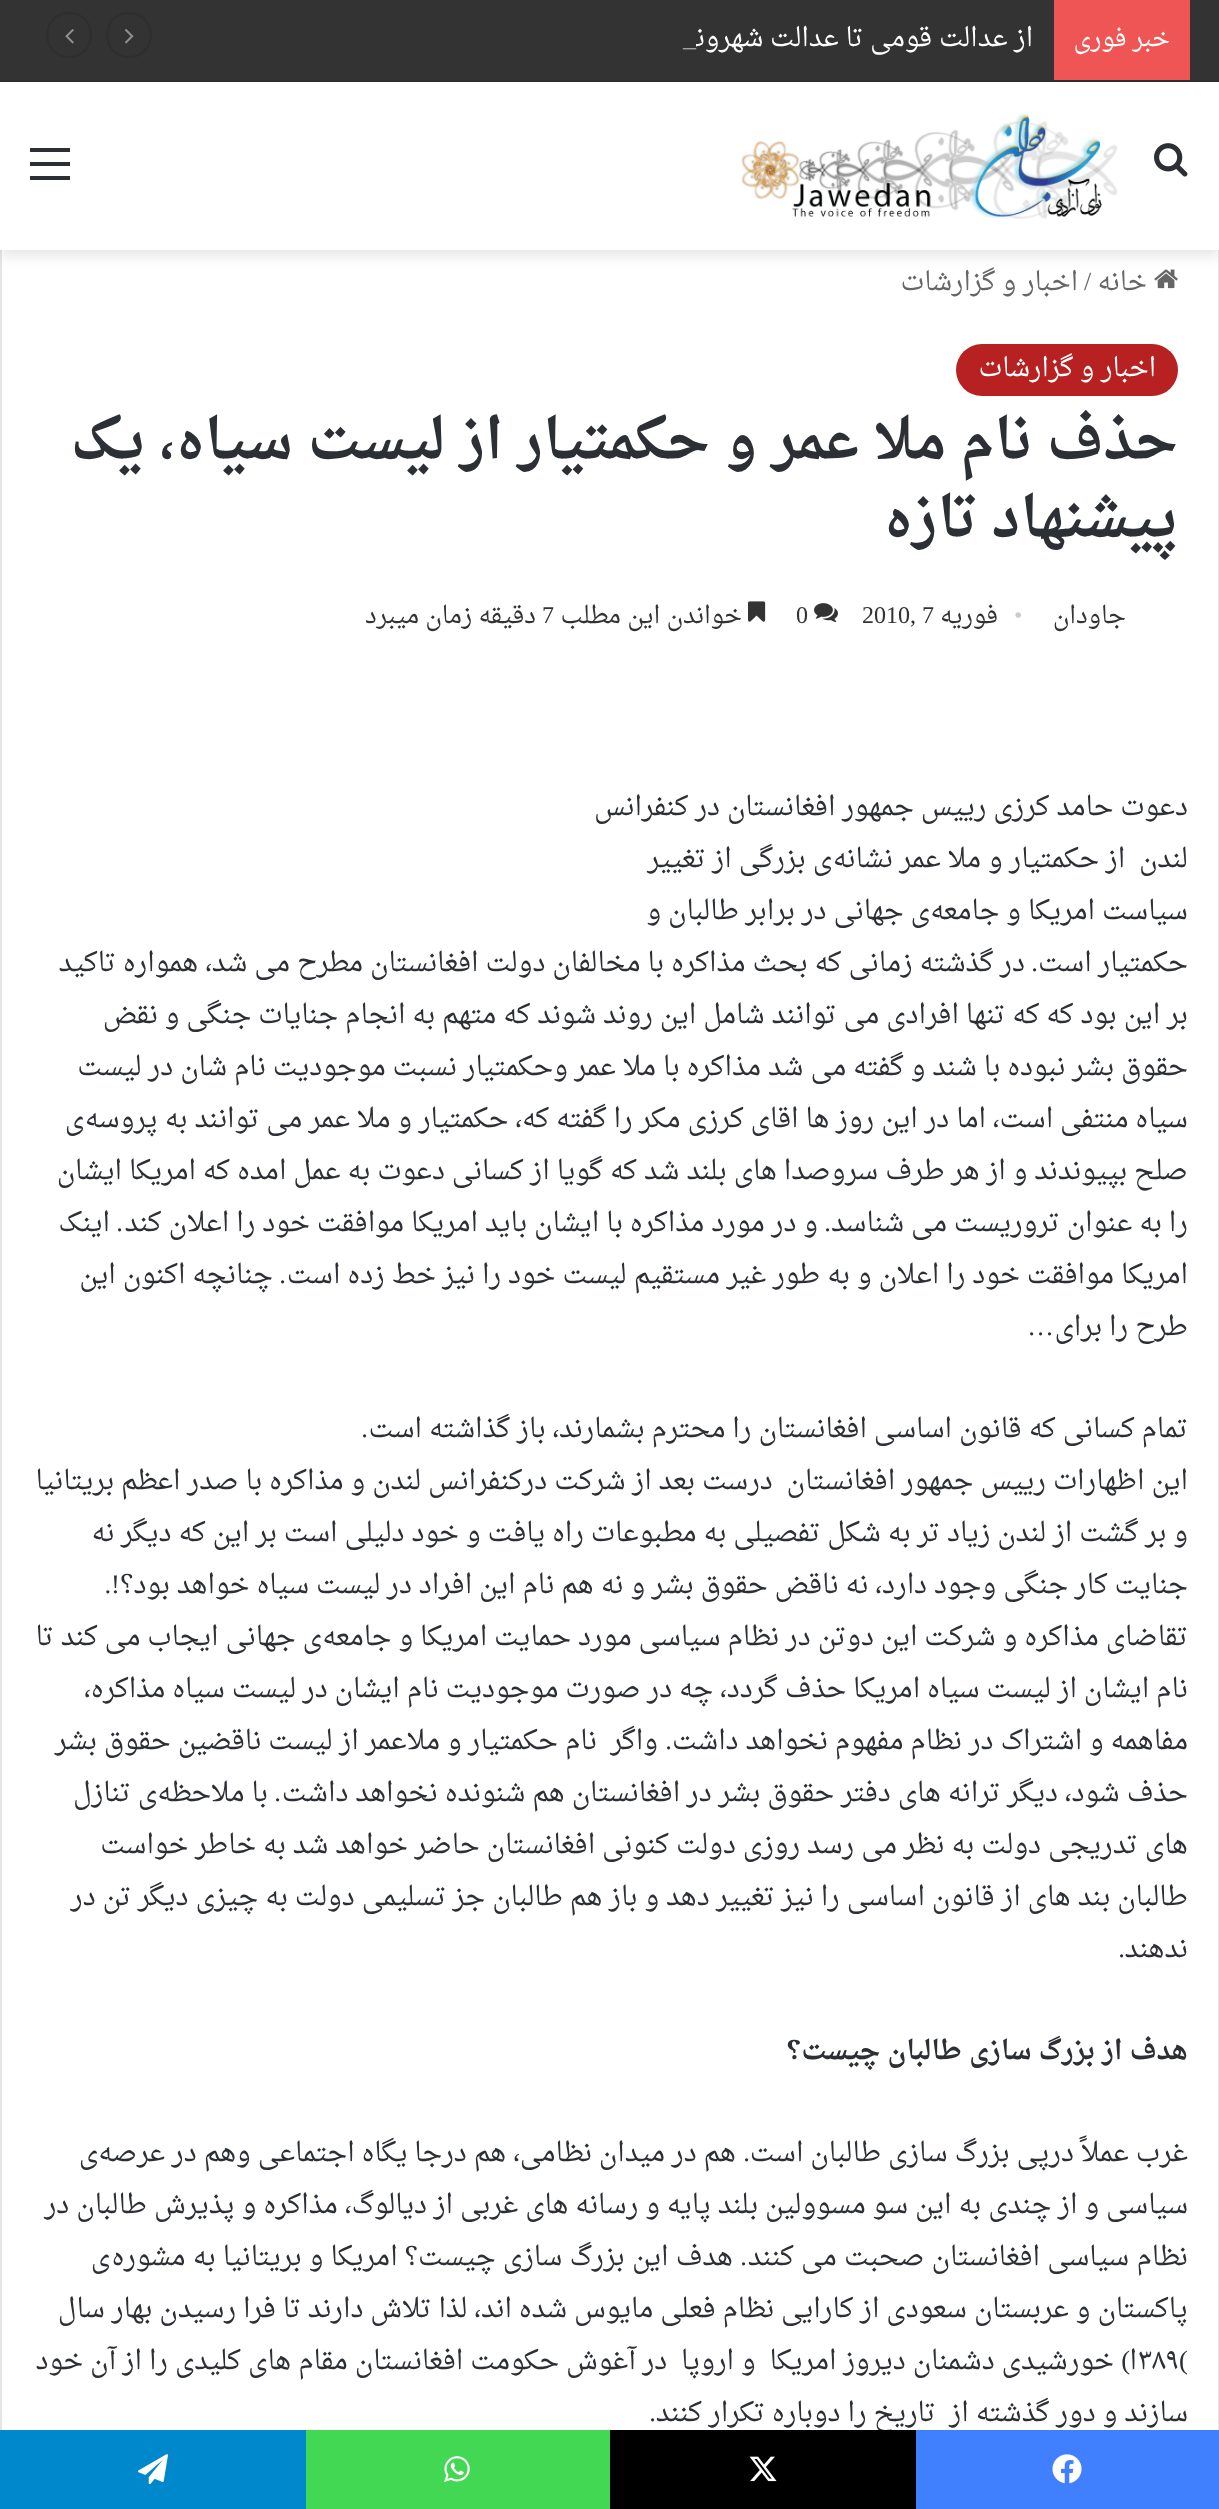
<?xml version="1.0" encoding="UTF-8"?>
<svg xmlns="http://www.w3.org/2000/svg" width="1219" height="2509">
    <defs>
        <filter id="blur1" x="-50%" y="-200%" width="200%" height="500%"><feGaussianBlur stdDeviation="7"/></filter>
    </defs>
    <rect width="100%" height="100%" fill="#FFFFFF"/>
    <rect x="1" y="221" width="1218" height="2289" fill="none" stroke="#E5E5E5" stroke-width="2"/>
    <image x="1154" y="269" width="24" height="20" href="img_05.png"/>
    <rect x="0" y="88" width="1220" height="168" fill="#000000" fill-opacity="0.1" filter="url(#blur1)"/>
    <rect x="0" y="0" width="1219" height="80" fill="#333333"/>
    <rect x="0" y="80" width="1219" height="2" fill="#2E2E2E"/>
    <rect x="1054" y="0" width="136" height="80" fill="#F05555"/>
    <text x="1170" y="46" font-family="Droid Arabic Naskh" font-size="24" direction="rtl" fill="#FFFFFF">خبر فوری</text>
    <text x="1033" y="46" font-family="Droid Arabic Naskh" font-size="26" direction="rtl" fill="#FFFFFF">از عدالت قومی تا عدالت شهروندی</text>
    <rect x="665" y="33" width="31" height="22" fill="#333333"/>
    <text x="683" y="46" font-family="Liberation Serif" font-size="26" fill="#AAAAAA">_</text>
    <path d="M 129 57 C 100 57 100 13 129 13 C 158 13 158 57 129 57 Z" fill="none" stroke="#2E2E2E" stroke-width="2"/>
    <image x="125" y="29" width="9" height="15" href="img_01.png"/>
    <path d="M 69 57 C 40 57 40 13 69 13 C 98 13 98 57 69 57 Z" fill="none" stroke="#2E2E2E" stroke-width="2"/>
    <image x="65" y="29" width="9" height="15" href="img_02.png"/>
    <rect x="0" y="82" width="1219" height="168" fill="#FFFFFF"/>
    <image x="1154" y="143" width="34" height="34" href="img_03.png"/>
    <image x="741" y="113" width="377" height="106" href="img_04.png"/>
    <rect x="30" y="162" width="40" height="4" fill="#2C2F34"/>
    <rect x="30" y="148" width="40" height="4" fill="#2C2F34"/>
    <rect x="30" y="176" width="40" height="4" fill="#2C2F34"/>
    <text x="1147" y="290" font-family="Droid Arabic Naskh" font-size="26" direction="rtl" fill="#666666">خانه</text>
    <text x="1084" y="290" font-family="Liberation Serif" font-size="26" fill="#666666">/</text>
    <text x="1078" y="290" font-family="Droid Arabic Naskh" font-size="26" direction="rtl" fill="#666666">اخبار و گزارشات</text>
    <rect x="956" y="344" width="222" height="52" rx="26" fill="#B72121"/>
    <text x="1156" y="376" font-family="Droid Arabic Naskh" font-size="26" direction="rtl" fill="#FFFFFF">اخبار و گزارشات</text>
    <text font-family="Droid Arabic Naskh" font-size="56" font-weight="700" direction="rtl" fill="#2C2F34">
        <tspan x="1178" y="458">حذف نام ملا عمر و حکمتیار از لیست سیاه، یک</tspan>
        <tspan x="1178" y="536">پیشنهاد تازه</tspan>
    </text>
    <text x="1126" y="623" font-family="Droid Arabic Naskh" font-size="24" direction="rtl" fill="#333333">جاودان</text>
    <text x="1014" y="623" font-family="Liberation Serif" font-size="24" fill="#CCCCCC">•</text>
    <text x="998" y="623" font-family="Droid Arabic Naskh" font-size="24" direction="rtl" fill="#333333">فوریه</text>
    <text x="862" y="623" font-family="Liberation Serif" font-size="24" fill="#333333">2010, 7</text>
    <image x="814" y="603" width="24" height="19" href="img_06.png"/>
    <text x="796" y="623" font-family="Liberation Serif" font-size="24" fill="#333333">0</text>
    <image x="748" y="601" width="18" height="21" href="img_07.png"/>
    <text x="742" y="623" font-family="Droid Arabic Naskh" font-size="24" direction="rtl" fill="#333333">خواندن این مطلب</text>
    <text x="542" y="623" font-family="Liberation Serif" font-size="24" fill="#333333">7</text>
    <text x="536" y="623" font-family="Droid Arabic Naskh" font-size="24" direction="rtl" fill="#333333">دقیقه زمان میبرد</text>
    <text font-family="Droid Arabic Naskh" font-size="26.65" direction="rtl" fill="#2C2F34" xml:space="preserve"><tspan x="1188" y="815">دعوت حامد کرزی رییس جمهور افغانستان در کنفرانس</tspan><tspan x="1188" y="867">لندن  از حکمتیار و ملا عمر نشانه</tspan></text>
    <text x="832" y="867" font-family="Droid Arabic Naskh" font-size="26.65" direction="rtl" fill="#2C2F34">ی بزرگی از تغییر</text>
    <text x="1188" y="919" font-family="Droid Arabic Naskh" font-size="26.65" direction="rtl" fill="#2C2F34">سیاست امریکا و جامعه</text>
    <text x="930" y="919" font-family="Droid Arabic Naskh" font-size="26.65" direction="rtl" fill="#2C2F34">ی جهانی در برابر طالبان و</text>
    <text x="1188" y="971" font-family="Droid Arabic Naskh" font-size="26.65" direction="rtl" fill="#2C2F34">حکمتیار است</text>
    <text x="1038" y="971" font-family="Liberation Serif" font-size="26.65" direction="rtl" fill="#2C2F34">.</text>
    <text x="1025" y="971" font-family="Droid Arabic Naskh" font-size="26.65" direction="rtl" fill="#2C2F34">در گذشته زمانی که بحث مذاکره با مخالفان دولت افغانستان مطرح می شد، همواره تاکید</text>
    <text font-family="Droid Arabic Naskh" font-size="26.65" direction="rtl" fill="#2C2F34">
        <tspan x="1188" y="1023">بر این بود که که تنها افرادی می توانند شامل این روند شوند که متهم به انجام جنایات جنگی و نقض</tspan>
        <tspan x="1188" y="1075">حقوق بشر نبوده با شند و گفته می شد مذاکره با ملا عمر وحکمتیار نسبت موجودیت نام شان در لیست</tspan>
        <tspan x="1188" y="1127">سیاه منتفی است، اما در این روز ها اقای کرزی مکر را گفته که، حکمتیار و ملا عمر می توانند به پروسه</tspan>
    </text>
    <text x="84" y="1127" font-family="Droid Arabic Naskh" font-size="26.65" direction="rtl" fill="#2C2F34">ی</text>
    <text font-family="Droid Arabic Naskh" font-size="26.65" direction="rtl" fill="#2C2F34">
        <tspan x="1188" y="1179">صلح بپیوندند و از هر طرف سروصدا های بلند شد که گویا از کسانی دعوت به عمل امده که امریکا ایشان</tspan>
        <tspan x="1188" y="1231">را به عنوان تروریست می شناسد</tspan>
    </text>
    <text x="831" y="1231" font-family="Liberation Serif" font-size="26.65" direction="rtl" fill="#2C2F34">.</text>
    <text x="818" y="1231" font-family="Droid Arabic Naskh" font-size="26.65" direction="rtl" fill="#2C2F34">و در مورد مذاکره با ایشان باید امریکا موافقت خود را اعلان کند</text>
    <text x="123" y="1231" font-family="Liberation Serif" font-size="26.65" direction="rtl" fill="#2C2F34">.</text>
    <text x="110" y="1231" font-family="Droid Arabic Naskh" font-size="26.65" direction="rtl" fill="#2C2F34">اینک</text>
    <text x="1188" y="1283" font-family="Droid Arabic Naskh" font-size="26.65" direction="rtl" fill="#2C2F34">امریکا موافقت خود را اعلان و به طور غیر مستقیم لیست خود را نیز خط زده است</text>
    <text x="286" y="1283" font-family="Liberation Serif" font-size="26.65" direction="rtl" fill="#2C2F34">.</text>
    <text x="273" y="1283" font-family="Droid Arabic Naskh" font-size="26.65" direction="rtl" fill="#2C2F34">چنانچه اکنون این</text>
    <text x="1188" y="1335" font-family="Droid Arabic Naskh" font-size="26.65" direction="rtl" fill="#2C2F34">طرح را برای</text>
    <text x="1054" y="1335" font-family="Liberation Serif" font-size="26.65" direction="rtl" fill="#2C2F34">…</text>
    <text x="1188" y="1437" font-family="Droid Arabic Naskh" font-size="26.65" direction="rtl" fill="#2C2F34">تمام کسانی که قانون اساسی افغانستان را محترم بشمارند، باز گذاشته است</text>
    <text x="368" y="1437" font-family="Liberation Serif" font-size="26.65" direction="rtl" fill="#2C2F34">.</text>
    <text font-family="Droid Arabic Naskh" font-size="26.65" direction="rtl" fill="#2C2F34" xml:space="preserve"><tspan x="1188" y="1489">این اظهارات رییس جمهور افغانستان  درست بعد از شرکت درکنفرانس لندن و مذاکره با صدر اعظم بریتانیا</tspan><tspan x="1188" y="1541">و بر گشت از لندن زیاد تر به شکل تفصیلی به مطبوعات راه یافت و خود دلیلی است بر این که دیگر نه</tspan><tspan x="1188" y="1593">جنایت کار جنگی وجود دارد، نه ناقض حقوق بشر و نه هم نام این افراد در لیست سیاه خواهد بود؟</tspan></text>
    <text x="120" y="1593" font-family="Liberation Serif" font-size="26.65" direction="rtl" fill="#2C2F34">!.</text>
    <text x="1188" y="1645" font-family="Droid Arabic Naskh" font-size="26.65" direction="rtl" fill="#2C2F34">تقاضای مذاکره و شرکت این دوتن در نظام سیاسی مورد حمایت امریکا و جامعه</text>
    <text x="322" y="1645" font-family="Droid Arabic Naskh" font-size="26.65" direction="rtl" fill="#2C2F34">ی جهانی ایجاب می کند تا</text>
    <text font-family="Droid Arabic Naskh" font-size="26.65" direction="rtl" fill="#2C2F34">
        <tspan x="1188" y="1697">نام ایشان از لیست سیاه امریکا حذف گردد، چه در صورت موجودیت نام ایشان در لیست سیاه مذاکره،</tspan>
        <tspan x="1188" y="1749">مفاهمه و اشتراک در نظام مفهوم نخواهد داشت</tspan>
    </text>
    <text x="672" y="1749" font-family="Liberation Serif" font-size="26.65" direction="rtl" fill="#2C2F34">.</text>
    <text x="658" y="1749" font-family="Droid Arabic Naskh" font-size="26.65" direction="rtl" fill="#2C2F34" xml:space="preserve">واگر  نام حکمتیار و ملاعمر از لیست ناقضین حقوق بشر</text>
    <text x="1188" y="1801" font-family="Droid Arabic Naskh" font-size="26.65" direction="rtl" fill="#2C2F34">حذف شود، دیگر ترانه های دفتر حقوق بشر در افغانستان هم شنونده نخواهد داشت</text>
    <text x="281" y="1801" font-family="Liberation Serif" font-size="26.65" direction="rtl" fill="#2C2F34">.</text>
    <text x="268" y="1801" font-family="Droid Arabic Naskh" font-size="26.65" direction="rtl" fill="#2C2F34">با ملاحظه</text>
    <text x="157" y="1801" font-family="Droid Arabic Naskh" font-size="26.65" direction="rtl" fill="#2C2F34">ی تنازل</text>
    <text font-family="Droid Arabic Naskh" font-size="26.65" direction="rtl" fill="#2C2F34">
        <tspan x="1188" y="1853">های تدریجی دولت به نظر می رسد روزی دولت کنونی افغانستان حاضر خواهد شد به خاطر خواست</tspan>
        <tspan x="1188" y="1905">طالبان بند های از قانون اساسی را نیز تغییر دهد و باز هم طالبان جز تسلیمی دولت به چیزی دیگر تن در</tspan>
        <tspan x="1188" y="1957">ندهند</tspan>
    </text>
    <text x="1125" y="1957" font-family="Liberation Serif" font-size="26.65" direction="rtl" fill="#2C2F34">.</text>
    <text x="1188" y="2059" font-family="Droid Arabic Naskh" font-size="26.65" font-weight="700" direction="rtl" fill="#2C2F34">هدف از بزرگ سازی طالبان چیست؟</text>
    <text x="1188" y="2161" font-family="Droid Arabic Naskh" font-size="26.65" direction="rtl" fill="#2C2F34">غرب عملاً درپی بزرگ سازی طالبان است</text>
    <text x="750" y="2161" font-family="Liberation Serif" font-size="26.65" direction="rtl" fill="#2C2F34">.</text>
    <text x="736" y="2161" font-family="Droid Arabic Naskh" font-size="26.65" direction="rtl" fill="#2C2F34">هم در میدان نظامی، هم درجا یگاه اجتماعی وهم در عرصه</text>
    <text x="98" y="2161" font-family="Droid Arabic Naskh" font-size="26.65" direction="rtl" fill="#2C2F34">ی</text>
    <text font-family="Droid Arabic Naskh" font-size="26.65" direction="rtl" fill="#2C2F34">
        <tspan x="1188" y="2213">سیاسی و از چندی به این سو مسوولین بلند پایه و رسانه های غربی از دیالوگ، مذاکره و پذیرش طالبان در</tspan>
        <tspan x="1188" y="2265" word-spacing="0.25">نظام سیاسی افغانستان صحبت می کنند</tspan>
    </text>
    <text x="747" y="2265" font-family="Liberation Serif" font-size="26.65" direction="rtl" fill="#2C2F34">.</text>
    <text x="733" y="2265" word-spacing="0.25" font-family="Droid Arabic Naskh" font-size="26.65" direction="rtl" fill="#2C2F34">هدف این بزرگ سازی چیست؟ امریکا و بریتانیا به مشوره</text>
    <text x="110" y="2265" font-family="Droid Arabic Naskh" font-size="26.65" direction="rtl" fill="#2C2F34">ی</text>
    <text x="1188" y="2317" font-family="Droid Arabic Naskh" font-size="26.65" direction="rtl" fill="#2C2F34">پاکستان و عربستان سعودی از کارایی نظام فعلی مایوس شده اند، لذا تلاش دارند تا فرا رسیدن بهار سال</text>
    <text x="1179" y="2369" font-family="Liberation Serif" font-size="26.65" fill="#2C2F34">(</text>
    <text x="1137" y="2369" font-family="Droid Arabic Naskh" font-size="26.65" fill="#2C2F34">۳۸۹</text>
    <text x="1137" y="2369" font-family="Droid Arabic Naskh" font-size="26.65" direction="rtl" fill="#2C2F34">ا</text>
    <text x="1130" y="2369" font-family="Liberation Serif" font-size="26.65" direction="rtl" fill="#2C2F34">)</text>
    <text x="1114" y="2369" font-family="Droid Arabic Naskh" font-size="26.65" direction="rtl" fill="#2C2F34" xml:space="preserve">خورشیدی دشمنان دیروز امریکا  و اروپا  در آغوش حکومت افغانستان مقام های کلیدی را از آن خود</text>
    <text x="1188" y="2421" font-family="Droid Arabic Naskh" font-size="26.65" direction="rtl" fill="#2C2F34" xml:space="preserve">سازند و دور گذشته از  تاریخ را دوباره تکرار کنند</text>
    <text x="656" y="2421" font-family="Liberation Serif" font-size="26.65" direction="rtl" fill="#2C2F34">.</text>
    <rect x="916" y="2430" width="303" height="79" fill="#4080FF"/>
    <image x="1052" y="2454" width="30" height="30" href="img_08.png"/>
    <rect x="610" y="2430" width="306" height="79" fill="#000000"/>
    <image x="749" y="2456" width="28" height="26" href="img_09.png"/>
    <rect x="306" y="2430" width="304" height="79" fill="#43D854"/>
    <image x="444" y="2456" width="26" height="26" href="img_10.png"/>
    <rect x="0" y="2430" width="306" height="79" fill="#0088CC"/>
    <image x="138" y="2454" width="30" height="31" href="img_11.png"/>
</svg>
